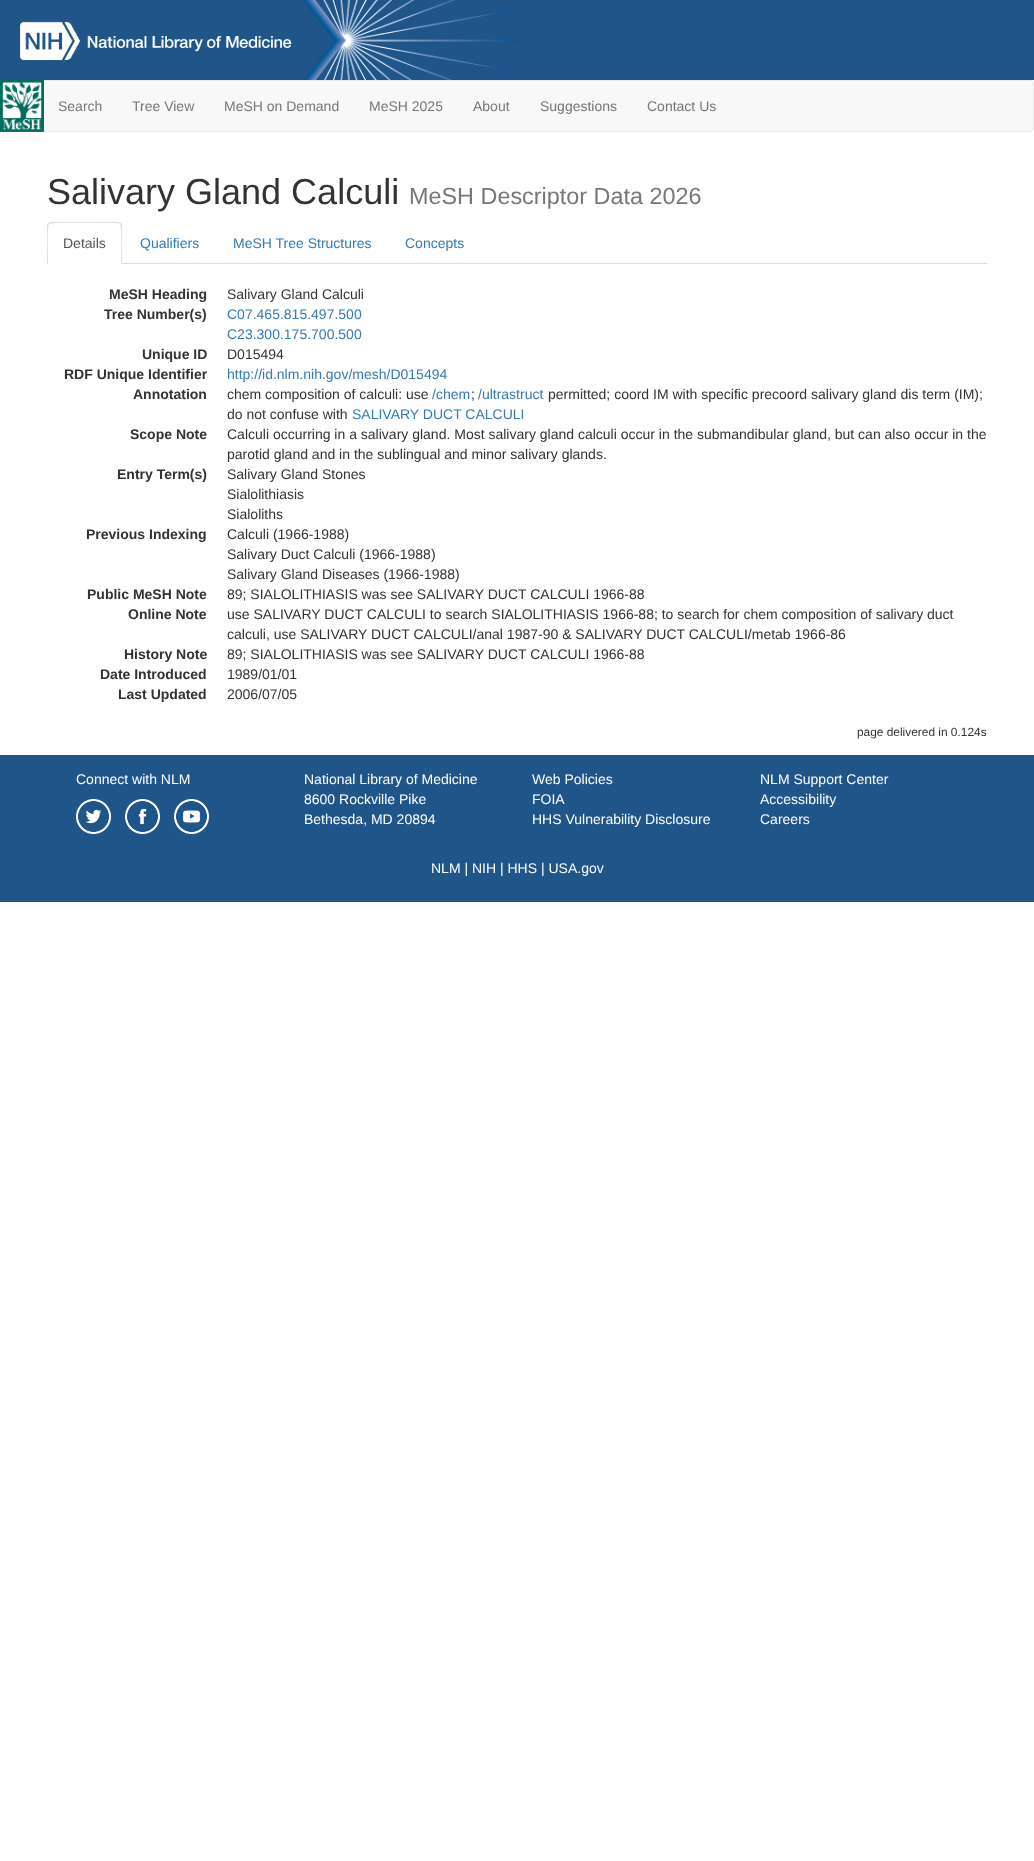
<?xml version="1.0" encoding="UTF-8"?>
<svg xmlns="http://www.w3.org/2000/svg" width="1034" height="1861">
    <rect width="100%" height="100%" fill="#FFFFFF"/>
    <rect x="0" y="0" width="1034" height="80" fill="#20558A"/>
    <image x="303" y="0" width="216" height="80" href="img_01.png"/>
    <image x="20" y="21" width="272" height="40" href="img_02.png"/>
    <rect x="0.5" y="80.5" width="1033" height="51" rx="3.5" fill="#F8F8F8" stroke="#E7E7E7"/>
    <image x="0" y="80" width="44" height="52" href="img_03.png"/>
    <text x="58" y="111" font-family="Liberation Sans" font-size="14" fill="#777777">Search</text>
    <text x="132" y="111" font-family="Liberation Sans" font-size="14" fill="#777777">Tree View</text>
    <text x="224" y="111" font-family="Liberation Sans" font-size="14" fill="#777777">MeSH on Demand</text>
    <text x="369" y="111" font-family="Liberation Sans" font-size="14" fill="#777777">MeSH 2025</text>
    <text x="473" y="111" font-family="Liberation Sans" font-size="14" fill="#777777">About</text>
    <text x="540" y="111" font-family="Liberation Sans" font-size="14" fill="#777777">Suggestions</text>
    <text x="647" y="111" font-family="Liberation Sans" font-size="14" fill="#777777">Contact Us</text>
    <text x="47" y="204" font-family="Liberation Sans" font-size="36" fill="#333333">Salivary Gland Calculi</text>
    <text x="409" y="204" font-family="Liberation Sans" font-size="23.4" fill="#777777">MeSH Descriptor Data 2026</text>
    <rect x="122" y="263" width="865" height="1" fill="#DDDDDD"/>
    <path d="M 51 222 L 48 223 L 49 224 C 51 222 100 223 107 223 H 118 L 120 224 L 121 223 L 118 222 Z" fill="#DDDDDD"/>
    <path d="M 122 264 V 226 C 122 225 122 224 121 223 L 120 224 C 122 226 121 258 121 263 Z" fill="#DDDDDD"/>
    <path d="M 47 264 L 48 263 C 48 258 47 226 49 224 L 48 223 L 47 226 Z" fill="#DDDDDD"/>
    <text x="63" y="248" font-family="Liberation Sans" font-size="14" fill="#555555">Details</text>
    <text x="140" y="248" font-family="Liberation Sans" font-size="14" fill="#337AB7">Qualifiers</text>
    <text x="233" y="248" font-family="Liberation Sans" font-size="14" fill="#337AB7">MeSH Tree Structures</text>
    <text x="405" y="248" font-family="Liberation Sans" font-size="14" fill="#337AB7">Concepts</text>
    <text x="109" y="299" font-family="Liberation Sans" font-size="14" font-weight="700" fill="#333333">MeSH Heading</text>
    <text x="227" y="299" font-family="Liberation Sans" font-size="14" fill="#333333">Salivary Gland Calculi</text>
    <text x="104" y="319" font-family="Liberation Sans" font-size="14" font-weight="700" fill="#333333">Tree Number(s)</text>
    <text font-family="Liberation Sans" font-size="14" fill="#337AB7">
        <tspan x="227" y="319">C07.465.815.497.500</tspan>
        <tspan x="227" y="339">C23.300.175.700.500</tspan>
    </text>
    <text x="142" y="359" font-family="Liberation Sans" font-size="14" font-weight="700" fill="#333333">Unique ID</text>
    <text x="227" y="359" font-family="Liberation Sans" font-size="14" fill="#333333">D015494</text>
    <text x="64" y="379" font-family="Liberation Sans" font-size="14" font-weight="700" fill="#333333">RDF Unique Identifier</text>
    <text x="227" y="379" font-family="Liberation Sans" font-size="14" fill="#337AB7">http://id.nlm.nih.gov/mesh/D015494</text>
    <text x="133" y="399" font-family="Liberation Sans" font-size="14" font-weight="700" fill="#333333">Annotation</text>
    <text x="227" y="399" font-family="Liberation Sans" font-size="14" fill="#333333">chem composition of calculi: use</text>
    <text x="432" y="399" font-family="Liberation Sans" font-size="14" fill="#337AB7">/‌chem</text>
    <text x="471" y="399" font-family="Liberation Sans" font-size="14" fill="#333333">;</text>
    <text x="478" y="399" font-family="Liberation Sans" font-size="14" fill="#337AB7">/‌ultrastruct</text>
    <text x="548" y="399" font-family="Liberation Sans" font-size="14" fill="#333333">permitted; coord IM with specific precoord salivary gland dis term (IM);</text>
    <text x="227" y="419" font-family="Liberation Sans" font-size="14" fill="#333333">do not confuse with</text>
    <text x="352" y="419" font-family="Liberation Sans" font-size="14" fill="#337AB7">SALIVARY DUCT CALCULI</text>
    <text x="130" y="439" font-family="Liberation Sans" font-size="14" font-weight="700" fill="#333333">Scope Note</text>
    <text font-family="Liberation Sans" font-size="14" fill="#333333">
        <tspan x="227" y="439">Calculi occurring in a salivary gland. Most salivary gland calculi occur in the submandibular gland, but can also occur in the</tspan>
        <tspan x="227" y="459">parotid gland and in the sublingual and minor salivary glands.</tspan>
    </text>
    <text x="117" y="479" font-family="Liberation Sans" font-size="14" font-weight="700" fill="#333333">Entry Term(s)</text>
    <text font-family="Liberation Sans" font-size="14" fill="#333333">
        <tspan x="227" y="479">Salivary Gland Stones</tspan>
        <tspan x="227" y="499">Sialolithiasis</tspan>
        <tspan x="227" y="519">Sialoliths</tspan>
    </text>
    <text x="86" y="539" font-family="Liberation Sans" font-size="14" font-weight="700" fill="#333333">Previous Indexing</text>
    <text font-family="Liberation Sans" font-size="14" fill="#333333">
        <tspan x="227" y="539">Calculi (1966-1988)</tspan>
        <tspan x="227" y="559">Salivary Duct Calculi (1966-1988)</tspan>
        <tspan x="227" y="579">Salivary Gland Diseases (1966-1988)</tspan>
    </text>
    <text x="87" y="599" font-family="Liberation Sans" font-size="14" font-weight="700" fill="#333333">Public MeSH Note</text>
    <text x="227" y="599" font-family="Liberation Sans" font-size="14" fill="#333333">89; SIALOLITHIASIS was see SALIVARY DUCT CALCULI 1966-88</text>
    <text x="128" y="619" font-family="Liberation Sans" font-size="14" font-weight="700" fill="#333333">Online Note</text>
    <text font-family="Liberation Sans" font-size="14" fill="#333333">
        <tspan x="227" y="619">use SALIVARY DUCT CALCULI to search SIALOLITHIASIS 1966-88; to search for chem composition of salivary duct</tspan>
        <tspan x="227" y="639">calculi, use SALIVARY DUCT CALCULI/anal 1987-90 &amp; SALIVARY DUCT CALCULI/metab 1966-86</tspan>
    </text>
    <text x="124" y="659" font-family="Liberation Sans" font-size="14" font-weight="700" fill="#333333">History Note</text>
    <text x="227" y="659" font-family="Liberation Sans" font-size="14" fill="#333333">89; SIALOLITHIASIS was see SALIVARY DUCT CALCULI 1966-88</text>
    <text x="100" y="679" font-family="Liberation Sans" font-size="14" font-weight="700" fill="#333333">Date Introduced</text>
    <text x="227" y="679" font-family="Liberation Sans" font-size="14" fill="#333333">1989/01/01</text>
    <text x="118" y="699" font-family="Liberation Sans" font-size="14" font-weight="700" fill="#333333">Last Updated</text>
    <text x="227" y="699" font-family="Liberation Sans" font-size="14" fill="#333333">2006/07/05</text>
    <text x="857" y="736" font-family="Liberation Sans" font-size="11.9" fill="#333333">page delivered in 0.124s</text>
    <rect x="0" y="755" width="1034" height="147" fill="#20558A"/>
    <text x="76" y="784" font-family="Liberation Sans" font-size="14" fill="#FFFFFF">Connect with NLM</text>
    <image x="76" y="799" width="35" height="35" href="img_04.png"/>
    <image x="125" y="799" width="35" height="35" href="img_05.png"/>
    <image x="174" y="799" width="35" height="35" href="img_06.png"/>
    <text font-family="Liberation Sans" font-size="14" fill="#FFFFFF">
        <tspan x="304" y="784">National Library of Medicine</tspan>
        <tspan x="304" y="804">8600 Rockville Pike</tspan>
        <tspan x="304" y="824">Bethesda, MD 20894</tspan>
    </text>
    <text font-family="Liberation Sans" font-size="14" fill="#FFFFFF">
        <tspan x="532" y="784">Web Policies</tspan>
        <tspan x="532" y="804">FOIA</tspan>
        <tspan x="532" y="824">HHS Vulnerability Disclosure</tspan>
    </text>
    <text font-family="Liberation Sans" font-size="14" fill="#FFFFFF">
        <tspan x="760" y="784">NLM Support Center</tspan>
        <tspan x="760" y="804">Accessibility</tspan>
        <tspan x="760" y="824">Careers</tspan>
    </text>
    <text x="431" y="873" font-family="Liberation Sans" font-size="14" fill="#FFFFFF">NLM | NIH | HHS | USA.gov</text>
</svg>
